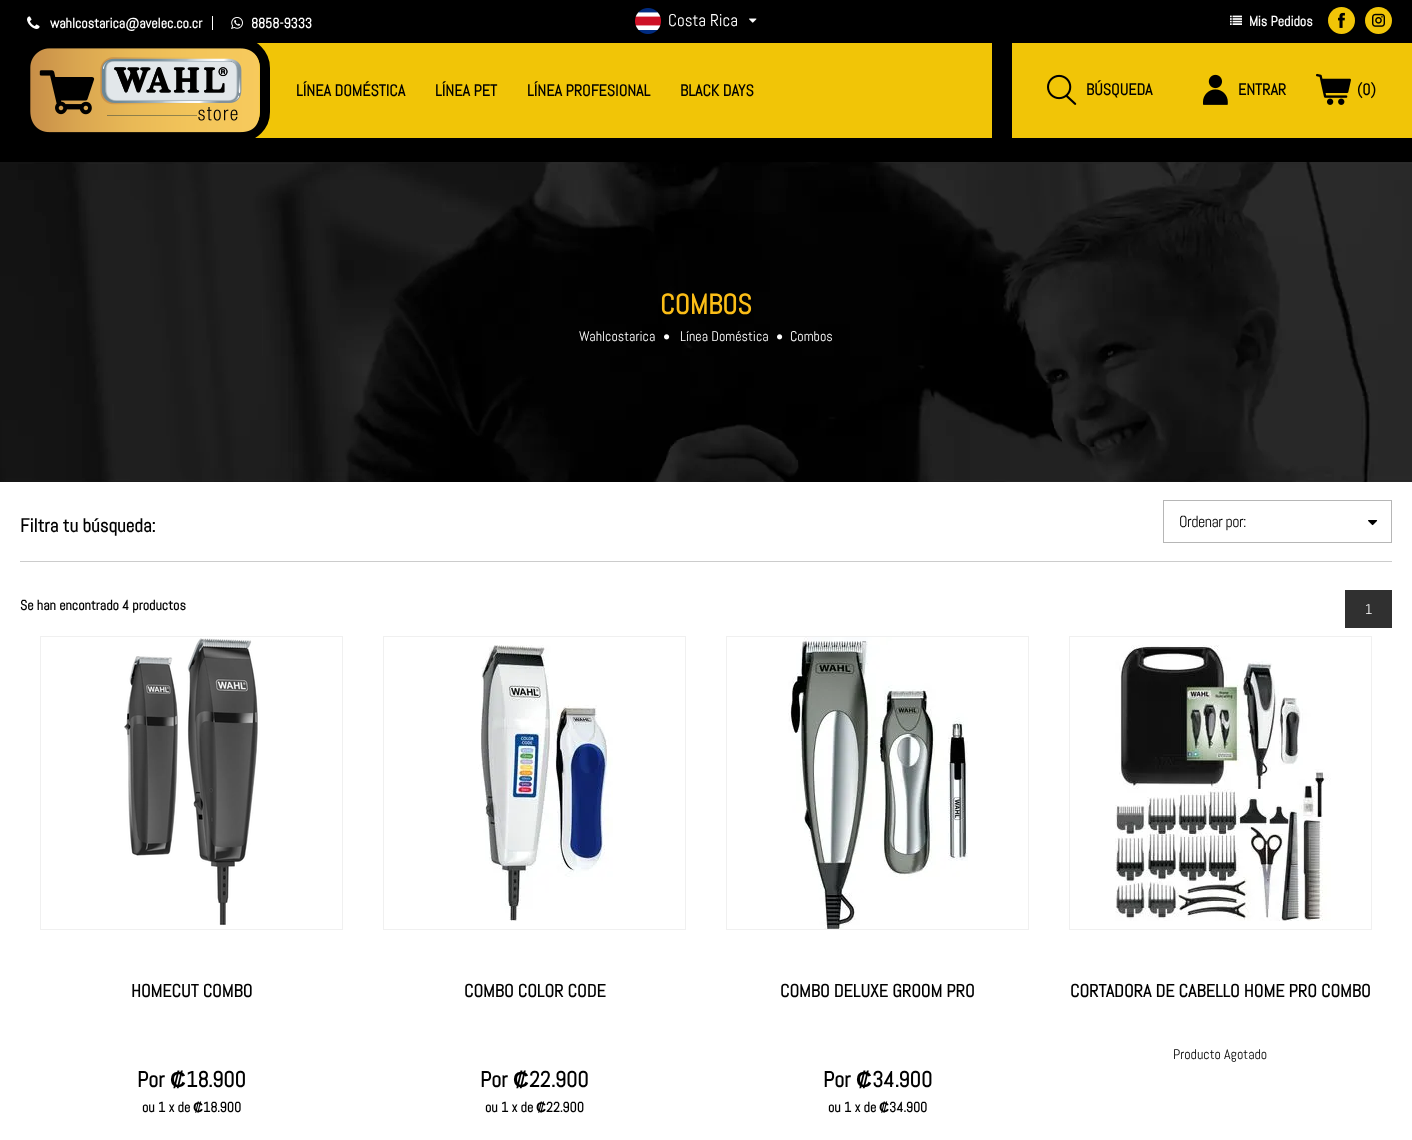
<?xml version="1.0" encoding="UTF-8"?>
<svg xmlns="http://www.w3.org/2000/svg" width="1412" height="1140">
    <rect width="100%" height="100%" fill="#FFFFFF"/>
    <rect x="0" y="0" width="1412" height="162" fill="#000000"/>
    <rect x="212" y="16" width="1" height="14" fill="#FFFFFF"/>
    <image x="27" y="16" width="13" height="13" href="img_01.png"/>
    <text x="50" y="28" font-family="Abel" font-size="14" font-weight="700" fill="#FFFFFF">wahlcostarica@avelec.co.cr</text>
    <image x="231" y="17" width="12" height="12" href="img_02.png"/>
    <text x="251" y="28" font-family="Abel" font-size="14" font-weight="700" fill="#FFFFFF">8858-9333</text>
    <image x="635" y="8" width="26" height="26" href="img_03.png"/>
    <text x="668" y="26" font-family="Abel" font-size="17" fill="#FFFFFF">Costa Rica</text>
    <image x="749" y="18" width="8" height="5" href="img_04.png"/>
    <image x="1230" y="15" width="12" height="10" href="img_05.png"/>
    <text x="1249" y="26" font-family="Abel" font-size="14" font-weight="700" fill="#FFFFFF">Mis Pedidos</text>
    <circle cx="1341.5" cy="20.5" r="13.5" fill="#F1C507"/>
    <image x="1338" y="12" width="7" height="16" href="img_06.png"/>
    <circle cx="1378.5" cy="20.5" r="13.5" fill="#F1C507"/>
    <image x="1372" y="13" width="13" height="14" href="img_07.png"/>
    <rect x="254" y="43" width="738" height="95" fill="#F1C507"/>
    <rect x="25" y="43" width="240" height="94" rx="25" fill="none" stroke="#000000" stroke-width="10"/>
    <image x="30" y="48" width="230" height="85" href="img_08.png"/>
    <text x="296" y="96" font-family="Abel" font-size="16" font-weight="700" fill="#000000">LÍNEA DOMÉSTICA</text>
    <text x="435" y="96" font-family="Abel" font-size="16" font-weight="700" fill="#000000">LÍNEA PET</text>
    <text x="527" y="96" font-family="Abel" font-size="16" font-weight="700" fill="#000000">LÍNEA PROFESIONAL</text>
    <text x="680" y="96" font-family="Abel" font-size="16" font-weight="700" fill="#000000">BLACK DAYS</text>
    <rect x="1012" y="43" width="400" height="95" fill="#F1C507"/>
    <image x="1047" y="74" width="30" height="31" href="img_09.png"/>
    <text x="1086" y="95" font-family="Abel" font-size="16" font-weight="700" fill="#000000">BÚSQUEDA</text>
    <image x="1203" y="74" width="25" height="31" href="img_10.png"/>
    <text x="1238" y="95" font-family="Abel" font-size="16" font-weight="700" fill="#000000">ENTRAR</text>
    <image x="1316" y="73" width="35" height="32" href="img_11.png"/>
    <text x="1357" y="95" font-family="Abel" font-size="16" font-weight="700" fill="#000000">(0)</text>
    <image x="0" y="162" width="1412" height="320" href="img_12.png"/>
    <text x="660" y="314" font-family="Abel" font-size="28" font-weight="700" fill="#FBBD17">COMBOS</text>
    <text x="579" y="341" font-family="Abel" font-size="14" fill="#FFFFFF">Wahlcostarica</text>
    <image x="664" y="334" width="6" height="6" href="img_13.png"/>
    <text x="680" y="341" font-family="Abel" font-size="14" fill="#FFFFFF">Línea Doméstica</text>
    <image x="777" y="334" width="6" height="6" href="img_14.png"/>
    <text x="790" y="341" font-family="Abel" font-size="14" fill="#FFFFFF">Combos</text>
    <rect x="20" y="561" width="1372" height="1" fill="#CCCCCC"/>
    <text x="20" y="532" font-family="Abel" font-size="19" font-weight="700" fill="#000000">Filtra tu búsqueda:</text>
    <rect x="1163.5" y="500.5" width="228" height="42" fill="none" stroke="#B6B6B6"/>
    <text x="1179" y="527" font-family="Abel" font-size="16" letter-spacing="-0.5" fill="#000000">Ordenar por:</text>
    <image x="1368" y="520" width="10" height="6" href="img_15.png"/>
    <text x="20" y="610" font-family="Abel" font-size="14" font-weight="700" fill="#000000">Se han encontrado 4 productos</text>
    <rect x="1345" y="590" width="47" height="38" fill="#303030"/>
    <text x="1365" y="614" font-family="Abel" font-size="14" fill="#FFFFFF">1</text>
    <rect x="40.5" y="636.5" width="302" height="293" fill="none" stroke="#F0F0F0"/>
    <image x="124" y="638" width="136" height="287" href="img_16.png"/>
    <text x="131" y="997" font-family="Abel" font-size="18" font-weight="700" fill="#000000">HOMECUT COMBO</text>
    <text x="137" y="1087" font-family="Abel" font-size="22" font-weight="700" fill="#000000">Por</text>
    <text x="170" y="1087" font-family="Liberation Sans" font-size="22" font-weight="700" fill="#000000">₡</text>
    <text x="186" y="1087" font-family="Abel" font-size="22" font-weight="700" fill="#000000">18.900</text>
    <text x="142" y="1112" font-family="Abel" font-size="14" font-weight="700" fill="#000000">ou 1 x de</text>
    <text x="193" y="1112" font-family="Liberation Sans" font-size="14" font-weight="700" fill="#000000">₡</text>
    <text x="203" y="1112" font-family="Abel" font-size="14" font-weight="700" fill="#000000">18.900</text>
    <rect x="383.5" y="636.5" width="302" height="293" fill="none" stroke="#F0F0F0"/>
    <image x="478" y="645" width="135" height="276" href="img_17.png"/>
    <text x="464" y="997" font-family="Abel" font-size="18" font-weight="700" fill="#000000">COMBO COLOR CODE</text>
    <text x="480" y="1087" font-family="Abel" font-size="22" font-weight="700" fill="#000000">Por</text>
    <text x="513" y="1087" font-family="Liberation Sans" font-size="22" font-weight="700" fill="#000000">₡</text>
    <text x="529" y="1087" font-family="Abel" font-size="22" font-weight="700" fill="#000000">22.900</text>
    <text x="485" y="1112" font-family="Abel" font-size="14" font-weight="700" fill="#000000">ou 1 x de</text>
    <text x="536" y="1112" font-family="Liberation Sans" font-size="14" font-weight="700" fill="#000000">₡</text>
    <text x="546" y="1112" font-family="Abel" font-size="14" font-weight="700" fill="#000000">22.900</text>
    <rect x="726.5" y="636.5" width="302" height="293" fill="none" stroke="#F0F0F0"/>
    <image x="788" y="637" width="180" height="292" href="img_18.png"/>
    <text x="780" y="997" font-family="Abel" font-size="18" font-weight="700" fill="#000000">COMBO DELUXE GROOM PRO</text>
    <text x="823" y="1087" font-family="Abel" font-size="22" font-weight="700" fill="#000000">Por</text>
    <text x="856" y="1087" font-family="Liberation Sans" font-size="22" font-weight="700" fill="#000000">₡</text>
    <text x="872" y="1087" font-family="Abel" font-size="22" font-weight="700" fill="#000000">34.900</text>
    <text x="828" y="1112" font-family="Abel" font-size="14" font-weight="700" fill="#000000">ou 1 x de</text>
    <text x="879" y="1112" font-family="Liberation Sans" font-size="14" font-weight="700" fill="#000000">₡</text>
    <text x="889" y="1112" font-family="Abel" font-size="14" font-weight="700" fill="#000000">34.900</text>
    <rect x="1069.5" y="636.5" width="302" height="293" fill="none" stroke="#F0F0F0"/>
    <image x="1115" y="645" width="216" height="276" href="img_19.png"/>
    <text x="1070" y="997" font-family="Abel" font-size="18" font-weight="700" fill="#000000">CORTADORA DE CABELLO HOME PRO COMBO</text>
    <text x="1173" y="1059" font-family="Abel" font-size="14" fill="#000000">Producto Agotado</text>
</svg>
